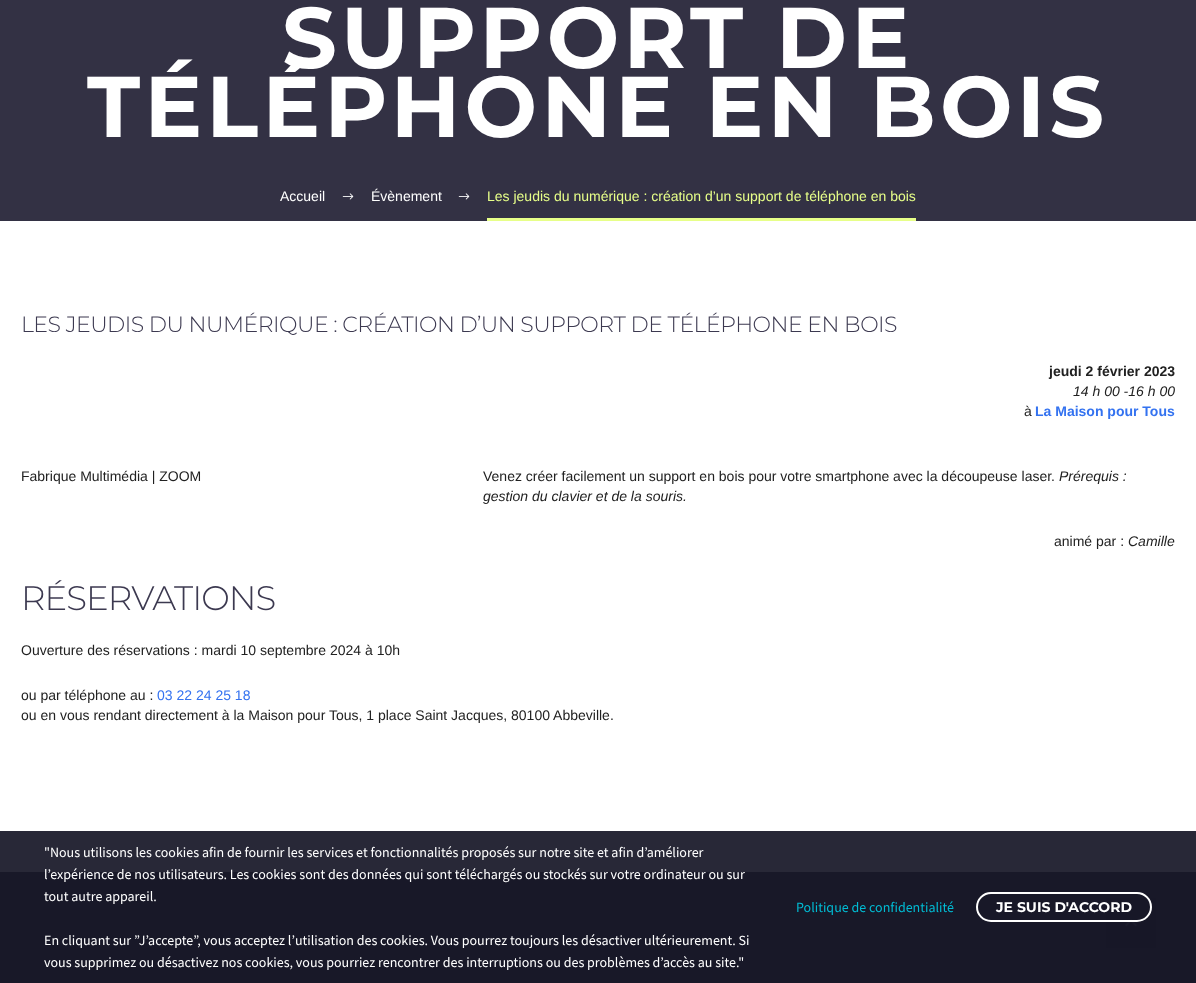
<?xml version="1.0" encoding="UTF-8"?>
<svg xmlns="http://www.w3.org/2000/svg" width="1196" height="983">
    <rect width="100%" height="100%" fill="#212331"/>
    <rect x="0" y="0" width="1196" height="221" fill="#333144"/>
    <text x="282" y="68" font-family="Montserrat" font-size="86" font-weight="700" letter-spacing="4.25" fill="#FFFFFF">SUPPORT DE</text>
    <text x="87" y="137" font-family="Montserrat" font-size="86" font-weight="700" letter-spacing="4.25" fill="#FFFFFF">TÉLÉPHONE EN BOIS</text>
    <text x="280" y="201" font-family="Liberation Sans" font-size="14" fill="#FFFFFF">Accueil</text>
    <image x="342" y="193" width="12" height="7" href="img_01.png"/>
    <text x="371" y="201" font-family="Liberation Sans" font-size="14" fill="#FFFFFF">Évènement</text>
    <image x="458" y="193" width="12" height="7" href="img_01.png"/>
    <rect x="487" y="218" width="429" height="3" fill="#E7FF89"/>
    <text x="487" y="201" font-family="Liberation Sans" font-size="14" fill="#E7FF89">Les jeudis du numérique : création d’un support de téléphone en bois</text>
    <rect x="0" y="221" width="1196" height="651" fill="#FFFFFF"/>
    <text x="21" y="332" font-family="Montserrat" font-size="22" font-weight="300" letter-spacing="-0.5" fill="#3C3950">LES JEUDIS DU NUMÉRIQUE : CRÉATION D’UN SUPPORT DE TÉLÉPHONE EN BOIS</text>
    <text x="1049" y="376" font-family="Liberation Sans" font-size="14" font-weight="700" fill="#212121">jeudi 2 février 2023</text>
    <text x="1073" y="396" font-family="Liberation Sans" font-size="14" font-style="italic" fill="#212121">14 h 00 -16 h 00</text>
    <text x="1024" y="416" font-family="Liberation Sans" font-size="14" fill="#212121">à</text>
    <text x="1035" y="416" font-family="Liberation Sans" font-size="14" font-weight="700" fill="#3372F0">La Maison pour Tous</text>
    <text x="21" y="481" font-family="Liberation Sans" font-size="14" fill="#212121">Fabrique Multimédia | ZOOM</text>
    <text x="483" y="481" font-family="Liberation Sans" font-size="14" fill="#212121">Venez créer facilement un support en bois pour votre smartphone avec la découpeuse laser.</text>
    <text x="1059" y="481" font-family="Liberation Sans" font-size="14" font-style="italic" fill="#212121">Prérequis :</text>
    <text x="483" y="501" font-family="Liberation Sans" font-size="14" font-style="italic" fill="#212121">gestion du clavier et de la souris.</text>
    <text x="1054" y="546" font-family="Liberation Sans" font-size="14" fill="#212121">animé par :</text>
    <text x="1128" y="546" font-family="Liberation Sans" font-size="14" font-style="italic" fill="#212121">Camille</text>
    <text x="21" y="610" font-family="Montserrat" font-size="34" font-weight="300" letter-spacing="-1" fill="#3C3950">RÉSERVATIONS</text>
    <text x="21" y="655" font-family="Liberation Sans" font-size="14" fill="#212121">Ouverture des réservations : mardi 10 septembre 2024 à 10h</text>
    <text x="21" y="700" font-family="Liberation Sans" font-size="14" fill="#212121">ou par téléphone au :</text>
    <text x="157" y="700" font-family="Liberation Sans" font-size="14" fill="#3372F0">03 22 24 25 18</text>
    <text x="21" y="720" font-family="Liberation Sans" font-size="14" fill="#212121">ou en vous rendant directement à la Maison pour Tous, 1 place Saint Jacques, 80100 Abbeville.</text>
    <rect x="1106" y="898" width="50" height="50" fill="#141520"/>
    <image x="1125" y="919" width="12" height="8" href="img_02.png"/>
    <rect x="0" y="831" width="1196" height="152" fill="#181828" fill-opacity="0.93"/>
    <text font-family="Source Sans Pro" font-size="14" fill="#FFFFFF">
        <tspan x="44" y="857">"Nous utilisons les cookies afin de fournir les services et fonctionnalités proposés sur notre site et afin d’améliorer</tspan>
        <tspan x="44" y="879">l’expérience de nos utilisateurs. Les cookies sont des données qui sont téléchargés ou stockés sur votre ordinateur ou sur</tspan>
        <tspan x="44" y="901">tout autre appareil.</tspan>
    </text>
    <text font-family="Source Sans Pro" font-size="14" fill="#FFFFFF">
        <tspan x="44" y="945">En cliquant sur ”J’accepte”, vous acceptez l’utilisation des cookies. Vous pourrez toujours les désactiver ultérieurement. Si</tspan>
        <tspan x="44" y="967">vous supprimez ou désactivez nos cookies, vous pourriez rencontrer des interruptions ou des problèmes d’accès au site."</tspan>
    </text>
    <text x="796" y="912" font-family="Source Sans Pro" font-size="14" fill="#00BCD4">Politique de confidentialité</text>
    <rect x="977" y="893" width="174" height="28" rx="14" fill="none" stroke="#FFFFFF" stroke-width="2"/>
    <text x="996" y="912" font-family="Montserrat" font-size="14" font-weight="700" fill="#FFFFFF">JE SUIS D'ACCORD</text>
</svg>
